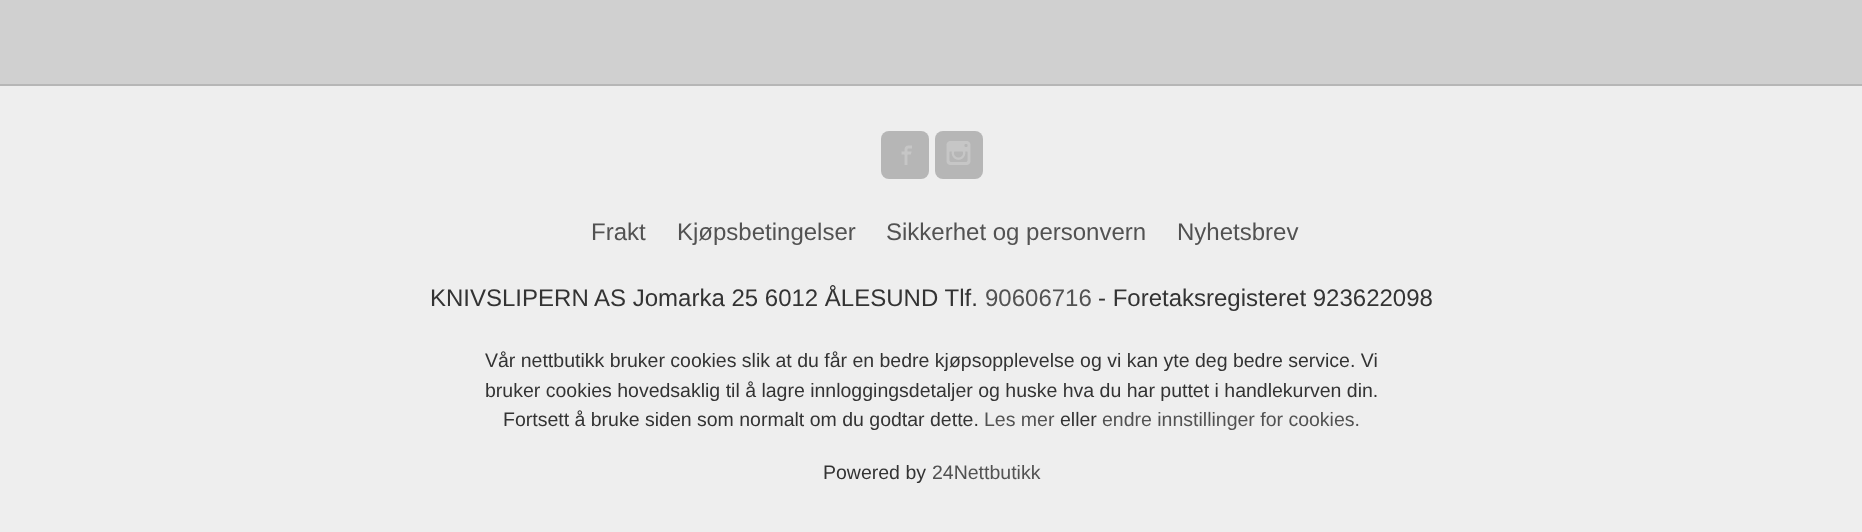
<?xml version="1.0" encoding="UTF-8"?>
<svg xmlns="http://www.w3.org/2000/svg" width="1862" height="532">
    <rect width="100%" height="100%" fill="#D0D0D0"/>
    <rect x="0" y="86" width="1862" height="446" fill="#EEEEEE"/>
    <rect x="0" y="84" width="1862" height="2" fill="#B6B6B6"/>
    <rect x="881" y="131" width="48" height="48" rx="8" fill="#B6B6B6"/>
    <image x="901" y="145" width="11" height="20" href="img_01.png"/>
    <rect x="935" y="131" width="48" height="48" rx="8" fill="#B6B6B6"/>
    <image x="946" y="141" width="25" height="24" href="img_02.png"/>
    <text x="591" y="240" font-family="Liberation Sans" font-size="24" fill="#525252">Frakt</text>
    <text x="677" y="240" font-family="Liberation Sans" font-size="24" fill="#525252">Kjøpsbetingelser</text>
    <text x="886" y="240" font-family="Liberation Sans" font-size="24" fill="#525252">Sikkerhet og personvern</text>
    <text x="1177" y="240" font-family="Liberation Sans" font-size="24" fill="#525252">Nyhetsbrev</text>
    <text x="430" y="306" font-family="Liberation Sans" font-size="24" fill="#333333">KNIVSLIPERN AS Jomarka 25 6012 ÅLESUND Tlf.</text>
    <text x="985" y="306" font-family="Liberation Sans" font-size="24" fill="#525252">90606716</text>
    <text x="1098" y="306" font-family="Liberation Sans" font-size="24" fill="#333333">- Foretaksregisteret 923622098</text>
    <text font-family="Liberation Sans" font-size="19.5" fill="#333333">
        <tspan x="485" y="367">Vår nettbutikk bruker cookies slik at du får en bedre kjøpsopplevelse og vi kan yte deg bedre service. Vi</tspan>
        <tspan x="485" y="397">bruker cookies hovedsaklig til å lagre innloggingsdetaljer og huske hva du har puttet i handlekurven din.</tspan>
    </text>
    <text x="503" y="426" font-family="Liberation Sans" font-size="19.5" fill="#333333">Fortsett å bruke siden som normalt om du godtar dette.</text>
    <text x="984" y="426" font-family="Liberation Sans" font-size="19.5" fill="#525252">Les mer</text>
    <text x="1060" y="426" font-family="Liberation Sans" font-size="19.5" fill="#333333">eller</text>
    <text x="1102" y="426" font-family="Liberation Sans" font-size="19.5" fill="#525252">endre innstillinger for cookies.</text>
    <text x="823" y="479" font-family="Liberation Sans" font-size="19.5" fill="#333333">Powered by</text>
    <text x="932" y="479" font-family="Liberation Sans" font-size="19.5" fill="#525252">24Nettbutikk</text>
</svg>
